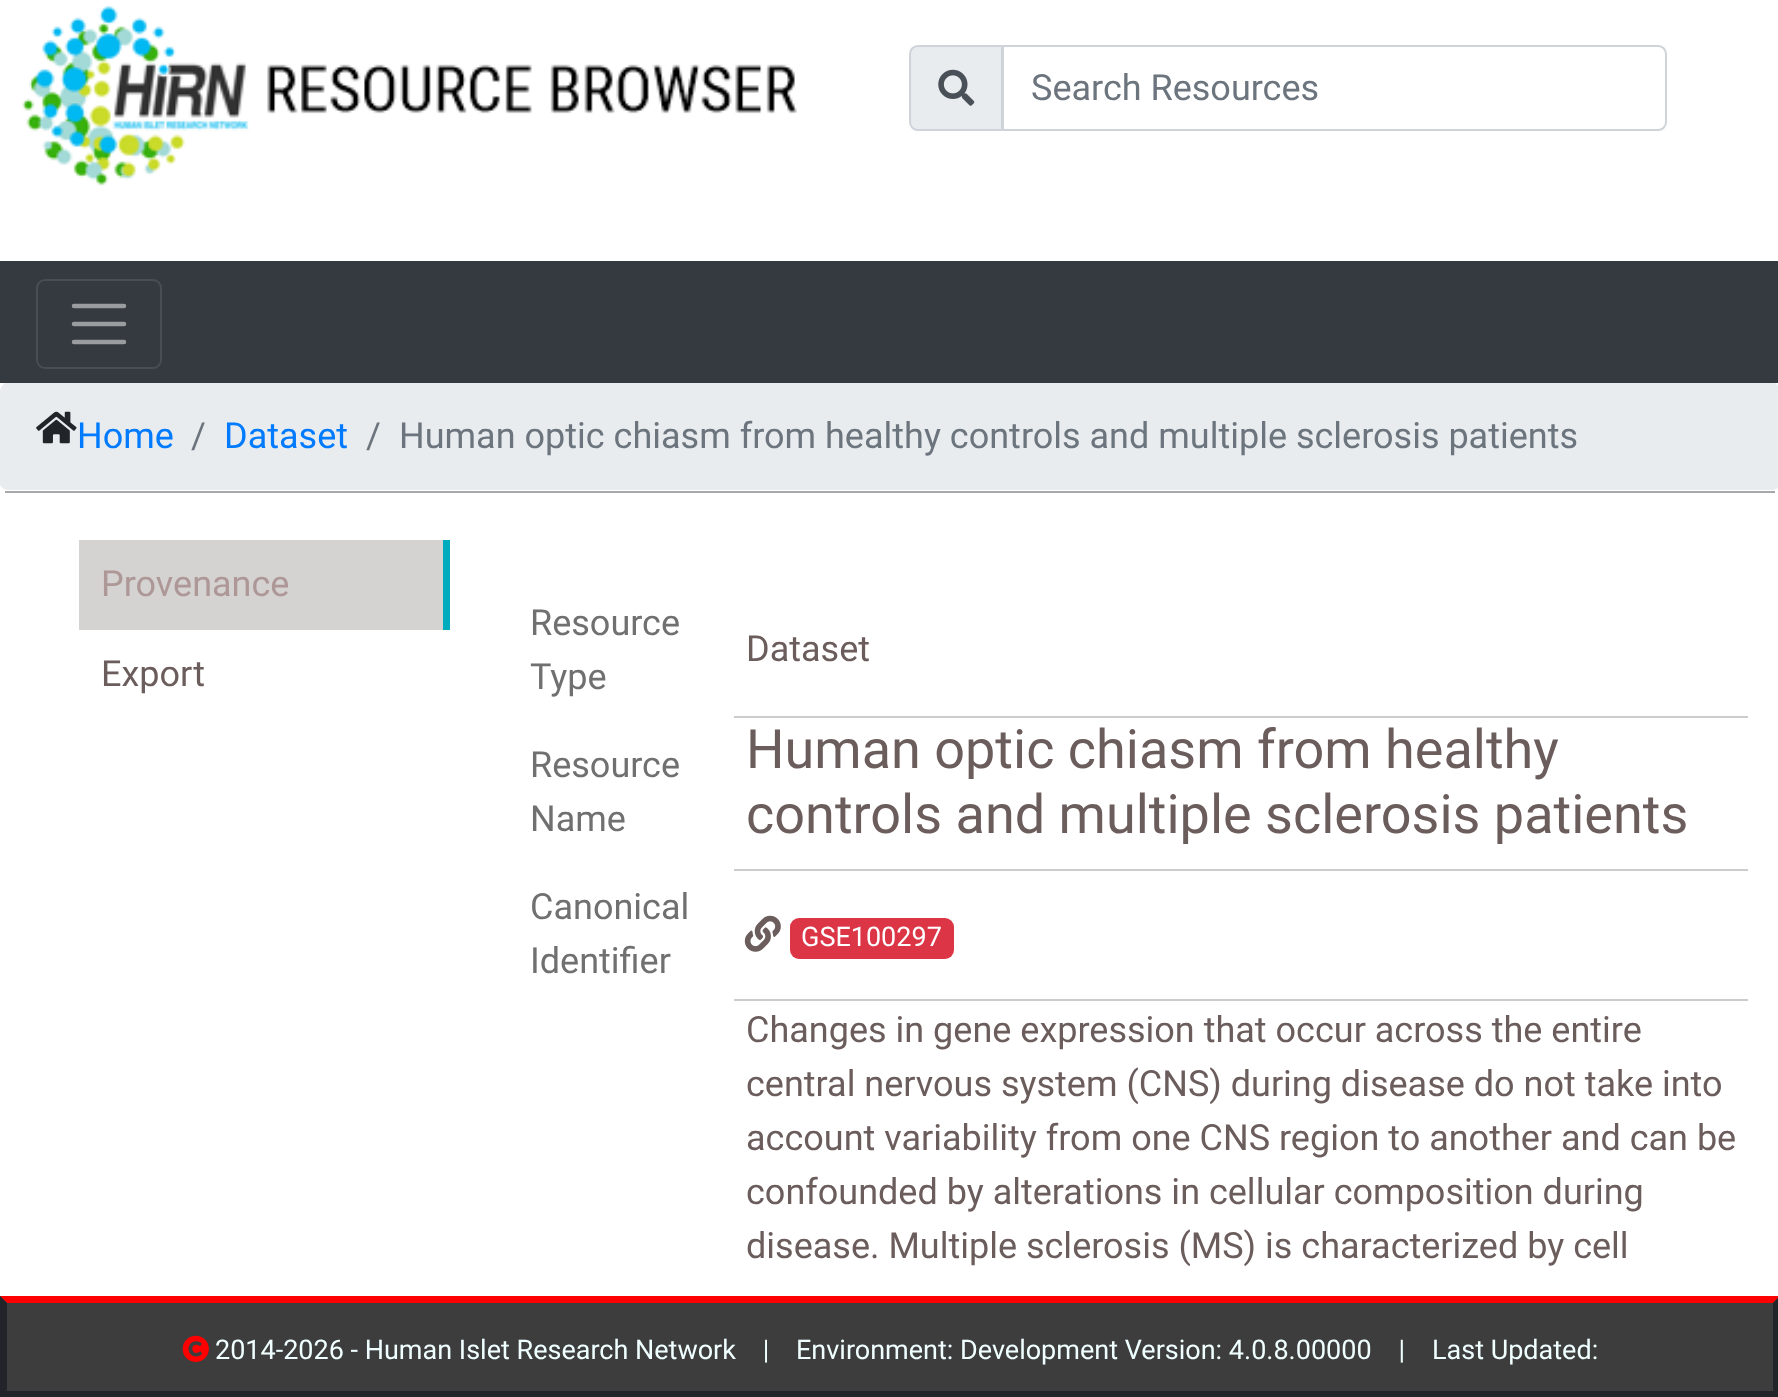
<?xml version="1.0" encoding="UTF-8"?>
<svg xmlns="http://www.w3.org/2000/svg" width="1778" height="1397">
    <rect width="100%" height="100%" fill="#FFFFFF"/>
    <image x="22" y="6" width="775" height="180" href="img_01.png"/>
    <path d="M 918 46 H 1003 V 130 H 918 C 913.5 130 910 126.5 910 122 V 54 C 910 49.5 913.5 46 918 46 Z" fill="#E9ECEF" stroke="#CED4DA" stroke-width="2"/>
    <image x="938" y="69" width="37" height="37" href="img_02.png"/>
    <path d="M 1002 46 H 1658 C 1662.5 46 1666 49.5 1666 54 V 122 C 1666 126.5 1662.5 130 1658 130 H 1002 Z" fill="none" stroke="#CED4DA" stroke-width="2"/>
    <text x="1031" y="100" font-family="Roboto" font-size="36" fill="#6C757D">Search Resources</text>
    <path d="M 9 382 H 1771 C 1776 382 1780 387 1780 392 V 484 C 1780 487 1776 490 1771 490 H 9 C 4 490 0 487 0 484 V 392 C 0 387 4 382 9 382 Z" fill="#E9ECEF"/>
    <rect x="0" y="261" width="1778" height="122" fill="#343A40"/>
    <rect x="37" y="280" width="124" height="88" rx="8" fill="none" stroke="#484E53" stroke-width="2"/>
    <path d="M 74 306 H 124 M 74 324 H 124 M 74 342 H 124" fill="none" stroke="#9A9DA0" stroke-width="4.5" stroke-linecap="round"/>
    <rect x="5" y="491" width="1770" height="2" fill="#A8A8A8"/>
    <image x="36" y="411" width="41" height="33" href="img_03.png"/>
    <text x="77" y="448" font-family="Roboto" font-size="36" fill="#007BFF">Home</text>
    <text x="191" y="448" font-family="Roboto" font-size="36" fill="#6C757D">/</text>
    <text x="224" y="448" font-family="Roboto" font-size="36" fill="#007BFF">Dataset</text>
    <text x="366" y="448" font-family="Roboto" font-size="36" fill="#6C757D">/</text>
    <text x="399" y="448" font-family="Roboto" font-size="36" fill="#6C757D">Human optic chiasm from healthy controls and multiple sclerosis patients</text>
    <rect x="79" y="540" width="364" height="90" fill="#D5D2D2"/>
    <rect x="443" y="540" width="7" height="90" fill="#00ABBD"/>
    <text x="101" y="596" font-family="Roboto" font-size="36" fill="#AD9897">Provenance</text>
    <text x="101" y="686" font-family="Roboto" font-size="36" fill="#6C5D5D">Export</text>
    <text font-family="Roboto" font-size="36" fill="#6F706F">
        <tspan x="530" y="635">Resource</tspan>
        <tspan x="530" y="689">Type</tspan>
    </text>
    <rect x="734" y="716" width="1014" height="2" fill="#CCCCCC"/>
    <text x="746" y="661" font-family="Roboto" font-size="36" fill="#6C5D5D">Dataset</text>
    <text font-family="Roboto" font-size="36" fill="#6F706F">
        <tspan x="530" y="777">Resource</tspan>
        <tspan x="530" y="831">Name</tspan>
    </text>
    <rect x="734" y="869" width="1014" height="2" fill="#CCCCCC"/>
    <text font-family="Roboto" font-size="54" fill="#6C5D5D">
        <tspan x="746" y="768">Human optic chiasm from healthy</tspan>
        <tspan x="746" y="833">controls and multiple sclerosis patients</tspan>
    </text>
    <text font-family="Roboto" font-size="36" fill="#6F706F">
        <tspan x="530" y="919">Canonical</tspan>
        <tspan x="530" y="973">Identifier</tspan>
    </text>
    <rect x="734" y="999" width="1014" height="2" fill="#CCCCCC"/>
    <image x="744" y="915" width="37" height="37" href="img_04.png"/>
    <rect x="790" y="918" width="164" height="41" rx="9" fill="#DC3545"/>
    <text x="801" y="946" font-family="Roboto" font-size="27" fill="#FFFFFF">GSE100297</text>
    <text font-family="Roboto" font-size="36" fill="#6C5D5D">
        <tspan x="746" y="1042">Changes in gene expression that occur across the entire</tspan>
        <tspan x="746" y="1096">central nervous system (CNS) during disease do not take into</tspan>
        <tspan x="746" y="1150">account variability from one CNS region to another and can be</tspan>
        <tspan x="746" y="1204">confounded by alterations in cellular composition during</tspan>
        <tspan x="746" y="1258">disease. Multiple sclerosis (MS) is characterized by cell</tspan>
    </text>
    <rect x="0" y="1296" width="1778" height="95" fill="#3E3D3D"/>
    <path d="M 0 1296 H 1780 L 1773 1303 H 7 Z" fill="#FF0000"/>
    <path d="M 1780 1296 V 1397 L 1773 1390 V 1303 Z" fill="#212529"/>
    <rect x="0" y="1391" width="1778" height="6" fill="#212529"/>
    <path d="M 0 1397 V 1296 L 7 1303 V 1390 Z" fill="#212529"/>
    <image x="182" y="1335" width="27" height="27" href="img_05.png"/>
    <text x="215" y="1359" font-family="Roboto" font-size="27" fill="#F0FFFF" xml:space="preserve">2014-2026 - Human Islet Research Network    |</text>
    <text x="796" y="1359" font-family="Roboto" font-size="27" fill="#F0FFFF" xml:space="preserve">Environment: Development Version: 4.0.8.00000    |</text>
    <text x="1432" y="1359" font-family="Roboto" font-size="27" fill="#F0FFFF">Last Updated:</text>
</svg>
